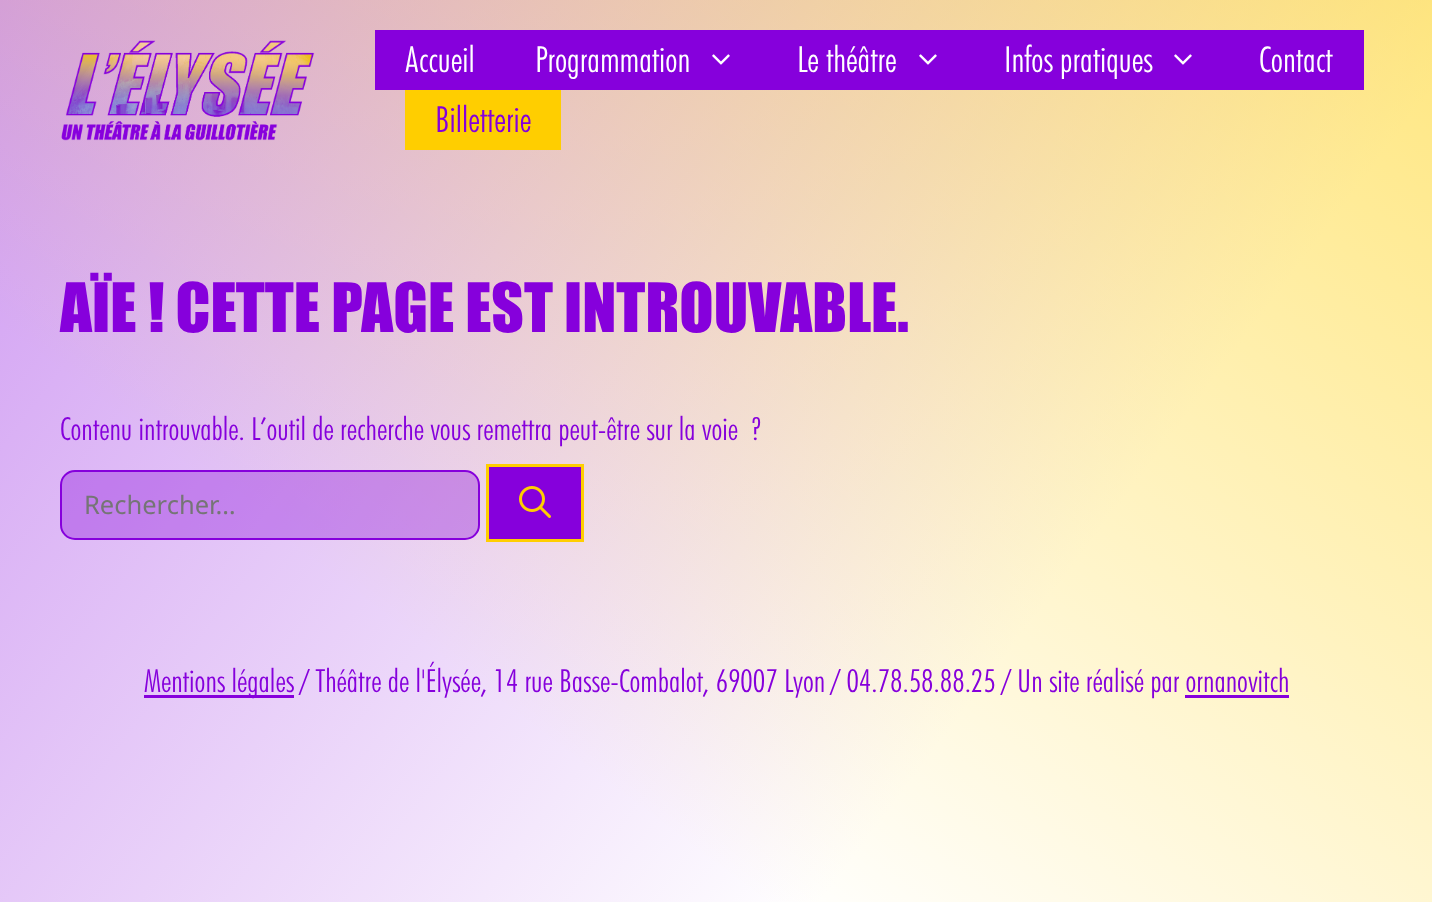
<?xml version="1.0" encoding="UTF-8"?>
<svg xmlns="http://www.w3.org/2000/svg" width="1432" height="902">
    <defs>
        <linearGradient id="g1" gradientUnits="userSpaceOnUse" x1="42" y1="-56" x2="1390" y2="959"><stop offset="0" stop-color="#CF9AF2"/><stop offset="0.71" stop-color="#FFFFFF"/></linearGradient>
        <linearGradient id="g2" gradientUnits="userSpaceOnUse" x1="1193" y1="-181" x2="240" y2="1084"><stop offset="0" stop-color="#FFCE00" stop-opacity="0.5"/><stop offset="0.71" stop-color="#FFCE00" stop-opacity="0"/></linearGradient>
    </defs>
    <rect width="100%" height="100%" fill="#FFFFFF"/>
    <rect x="0" y="0" width="1432" height="902" fill="url(#g1)"/>
    <rect x="0" y="0" width="1432" height="902" fill="url(#g2)"/>
    <image x="61" y="40" width="254" height="101" href="img_01.png"/>
    <rect x="375" y="30" width="989" height="60" fill="#8600DC"/>
    <text x="405" y="72" font-family="Futura" font-size="36" font-weight="300" fill="#FFFFFF">Accueil</text>
    <text x="535" y="72" font-family="Futura" font-size="36" font-weight="300" fill="#FFFFFF">Programmation</text>
    <image x="712" y="54" width="18" height="11" href="img_02.png"/>
    <text x="797" y="72" font-family="Futura" font-size="36" font-weight="300" fill="#FFFFFF">Le théâtre</text>
    <image x="919" y="54" width="18" height="11" href="img_02.png"/>
    <text x="1004" y="72" font-family="Futura" font-size="36" font-weight="300" fill="#FFFFFF">Infos pratiques</text>
    <image x="1174" y="54" width="18" height="11" href="img_02.png"/>
    <text x="1259" y="72" font-family="Futura" font-size="36" font-weight="300" fill="#FFFFFF">Contact</text>
    <rect x="405" y="90" width="156" height="60" fill="#FFCE00"/>
    <text x="435" y="132" font-family="Futura" font-size="36" font-weight="300" fill="#8600DC">Billetterie</text>
    <text x="60" y="332" font-family="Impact" font-size="63" fill="#8600DC">AÏE ! CETTE PAGE EST INTROUVABLE.</text>
    <text x="60" y="440" font-family="Futura" font-size="32" font-weight="300" fill="#8600DC">Contenu introuvable. L’outil de recherche vous remettra peut-être sur la voie</text>
    <text x="751" y="440" font-family="Futura" font-size="32" font-weight="300" fill="#8600DC">?</text>
    <rect x="61" y="471" width="418" height="68" rx="14" fill="#8600DC" fill-opacity="0.33" stroke="#8600DC" stroke-width="2"/>
    <text x="84" y="514" font-family="Noto Sans" font-size="25.5" fill="#757575">Rechercher…</text>
    <rect x="487.5" y="465.5" width="95" height="75" fill="#8600DC" stroke="#FFCE00" stroke-width="3"/>
    <image x="519" y="486" width="32" height="32" href="img_03.png"/>
    <rect x="144" y="695" width="150" height="3" fill="#8600DC"/>
    <text x="144" y="692" font-family="Futura" font-size="32" font-weight="300" fill="#8600DC">Mentions légales / Théâtre de l'Élysée, 14 rue Basse-Combalot, 69007 Lyon / 04.78.58.88.25 / Un site réalisé par ornanovitch</text>
    <rect x="1185" y="695" width="104" height="3" fill="#8600DC"/>
</svg>
